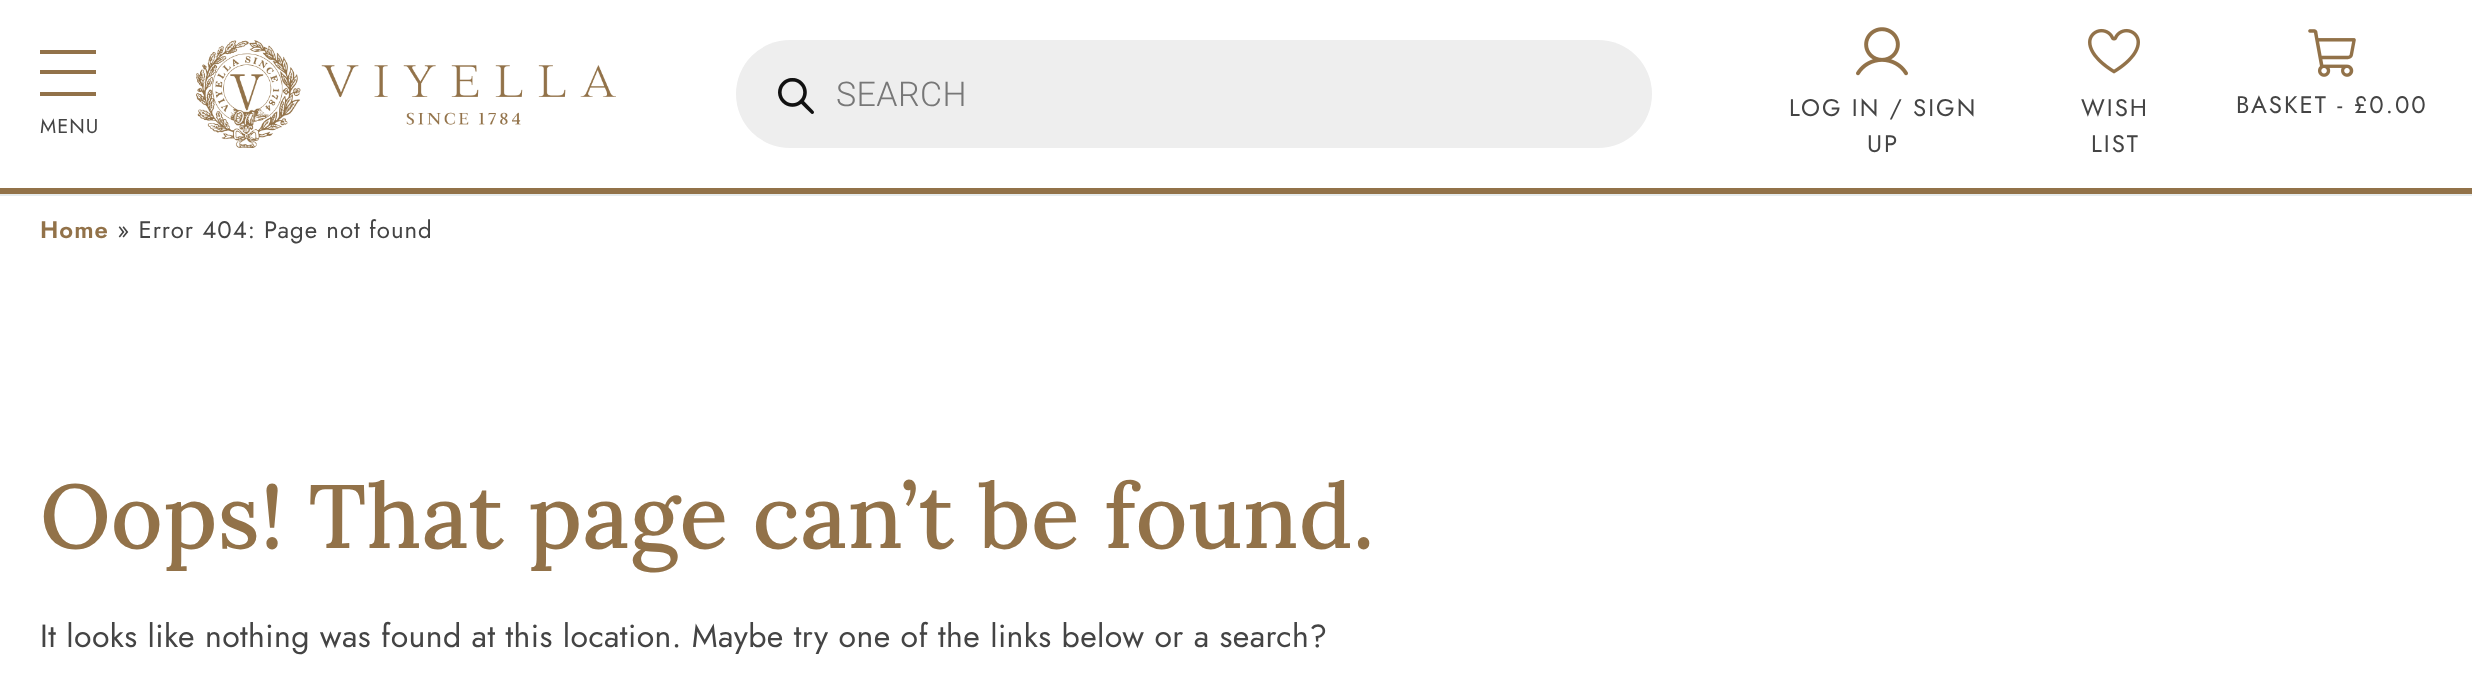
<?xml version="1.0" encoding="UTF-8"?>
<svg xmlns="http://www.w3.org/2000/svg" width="2472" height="699">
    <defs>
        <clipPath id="clip1"><rect x="40" y="50" width="56" height="52"/></clipPath>
    </defs>
    <rect width="100%" height="100%" fill="#FFFFFF"/>
    <rect x="0" y="188" width="2472" height="6" fill="#927249"/>
    <g clip-path="url(#clip1)">
        <path d="M 40 52 H 96 M 40 72 H 96 M 40 94 H 96" fill="none" stroke="#927249" stroke-width="4" stroke-linecap="round"/>
    </g>
    <text x="40" y="133" font-family="Jost" font-size="20" letter-spacing="1" fill="#444444">MENU</text>
    <image x="196" y="40" width="420" height="108" href="img_01.png"/>
    <rect x="736" y="40" width="916" height="108" rx="54" fill="#EEEEEE"/>
    <image x="778" y="78" width="36" height="36" href="img_02.png"/>
    <text x="836" y="106" font-family="Roboto" font-size="34" font-weight="300" letter-spacing="0.4" fill="#777777">SEARCH</text>
    <image x="1856" y="27" width="52" height="49" href="img_03.png"/>
    <text x="1789" y="116" font-family="Jost" font-size="24" letter-spacing="2" fill="#444444">LOG IN / SIGN</text>
    <text x="1867" y="152" font-family="Jost" font-size="24" letter-spacing="2" fill="#444444">UP</text>
    <image x="2088" y="28" width="52" height="46" href="img_04.png"/>
    <text x="2081" y="116" font-family="Jost" font-size="24" letter-spacing="2" fill="#444444">WISH</text>
    <text x="2091" y="152" font-family="Jost" font-size="24" letter-spacing="2" fill="#444444">LIST</text>
    <image x="2308" y="29" width="48" height="48" href="img_05.png"/>
    <text x="2236" y="113" font-family="Jost" font-size="24" letter-spacing="2" fill="#444444">BASKET - £0.00</text>
    <rect x="0" y="194" width="2472" height="2" fill="#E5EBED"/>
    <text x="40" y="238" font-family="Jost" font-size="24" font-weight="600" letter-spacing="1" fill="#927249">Home</text>
    <text x="117" y="238" font-family="Jost" font-size="24" letter-spacing="1" fill="#444444">» Error 404: Page not found</text>
    <text x="40" y="548" font-family="Lora" font-size="90" font-weight="500" letter-spacing="0.4" fill="#927249">Oops! That page can’t be found.</text>
    <text x="40" y="647" font-family="Jost" font-size="32" letter-spacing="0.4" fill="#444444">It looks like nothing was found at this location. Maybe try one of the links below or a search?</text>
</svg>
